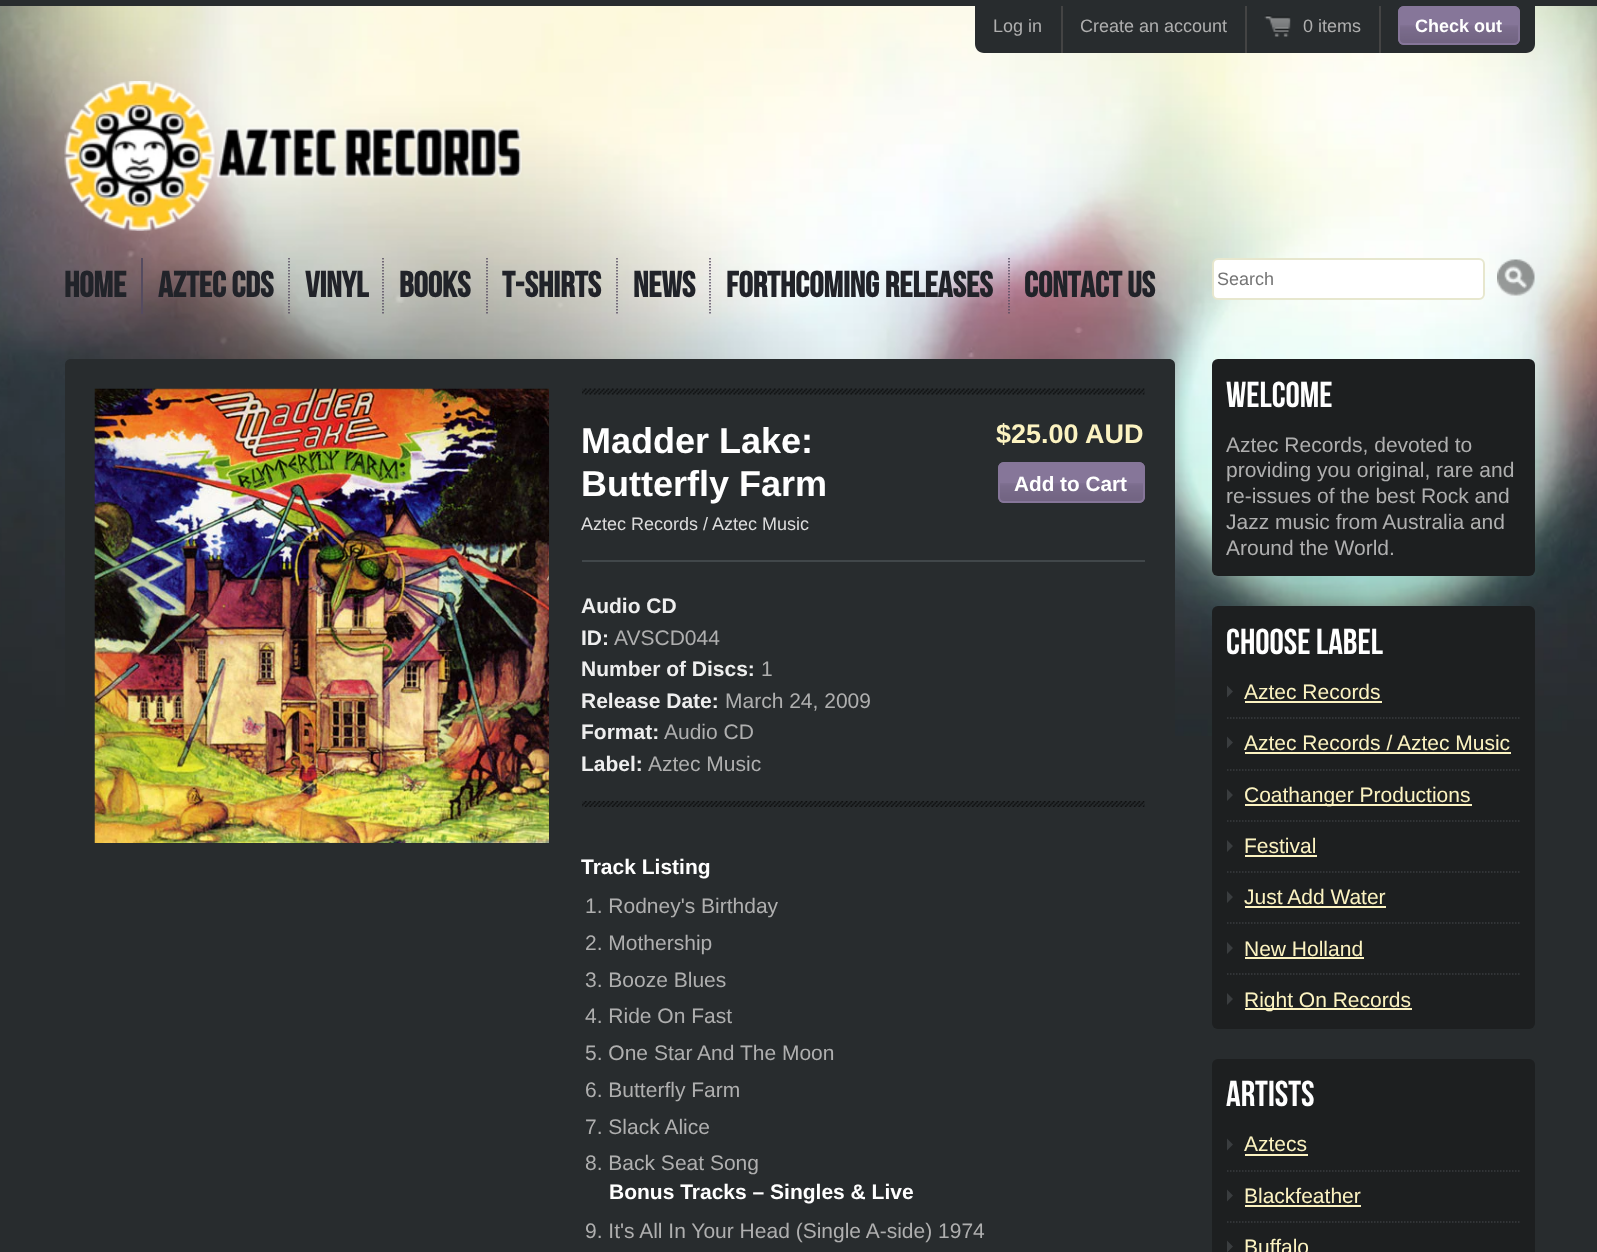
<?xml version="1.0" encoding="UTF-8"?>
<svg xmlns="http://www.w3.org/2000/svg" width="1597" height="1252">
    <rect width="100%" height="100%" fill="#282C2E"/>
    <image x="0" y="6" width="1597" height="730" href="img_01.png"/>
    <path d="M 975 6 H 1535 V 44 C 1535 49 1531 53 1526 53 H 984 C 979 53 975 49 975 44 Z" fill="#282C2E"/>
    <rect x="1061" y="6" width="2" height="47" fill="#444444"/>
    <text x="993" y="32" font-family="Liberation Sans" font-size="18" fill="#AFAFAF">Log in</text>
    <rect x="1245" y="6" width="2" height="47" fill="#444444"/>
    <text x="1080" y="32" font-family="Liberation Sans" font-size="18" fill="#AFAFAF">Create an account</text>
    <rect x="1379" y="6" width="2" height="47" fill="#444444"/>
    <image x="1264" y="15" width="27" height="22" href="img_02.png"/>
    <text x="1303" y="32" font-family="Liberation Sans" font-size="18" fill="#AFAFAF">0 items</text>
    <rect x="1398" y="6" width="122" height="39" rx="6" fill="#867699"/>
    <image x="1398" y="25" width="122" height="19" href="img_03.png"/>
    <rect x="1399" y="7" width="120" height="37" rx="5" fill="none" stroke="#867699" stroke-width="2"/>
    <text x="1415" y="32" font-family="Liberation Sans" font-size="18" font-weight="700" fill="#FFFFFF">Check out</text>
    <image x="64" y="81" width="458" height="150" href="img_04.png"/>
    <rect x="141" y="258" width="2" height="56" fill="#554B60"/>
    <text x="64" y="297" font-family="Bebas Neue" font-size="36" font-weight="700" fill="#212329">Home</text>
    <path d="M 289 258 V 313.5" fill="none" stroke="#554B60" stroke-width="1.5" stroke-dasharray="1.5 1.5"/>
    <text x="158" y="297" font-family="Bebas Neue" font-size="36" font-weight="700" fill="#212329">Aztec CDs</text>
    <path d="M 383 258 V 313.5" fill="none" stroke="#554B60" stroke-width="1.5" stroke-dasharray="1.5 1.5"/>
    <text x="305" y="297" font-family="Bebas Neue" font-size="36" font-weight="700" fill="#212329">Vinyl</text>
    <path d="M 487 258 V 313.5" fill="none" stroke="#554B60" stroke-width="1.5" stroke-dasharray="1.5 1.5"/>
    <text x="399" y="297" font-family="Bebas Neue" font-size="36" font-weight="700" fill="#212329">Books</text>
    <path d="M 617 258 V 313.5" fill="none" stroke="#554B60" stroke-width="1.5" stroke-dasharray="1.5 1.5"/>
    <text x="502" y="297" font-family="Bebas Neue" font-size="36" font-weight="700" fill="#212329">T-Shirts</text>
    <path d="M 710 258 V 313.5" fill="none" stroke="#554B60" stroke-width="1.5" stroke-dasharray="1.5 1.5"/>
    <text x="633" y="297" font-family="Bebas Neue" font-size="36" font-weight="700" fill="#212329">News</text>
    <path d="M 1009 258 V 313.5" fill="none" stroke="#554B60" stroke-width="1.5" stroke-dasharray="1.5 1.5"/>
    <text x="726" y="297" font-family="Bebas Neue" font-size="36" font-weight="700" fill="#212329">Forthcoming Releases</text>
    <text x="1024" y="297" font-family="Bebas Neue" font-size="36" font-weight="700" fill="#212329">Contact US</text>
    <rect x="1213" y="259" width="271" height="40" rx="5" fill="#FFFFFF" stroke="#E7E7CE" stroke-width="2"/>
    <text x="1217" y="285" font-family="Liberation Sans" font-size="18" fill="#757575">Search</text>
    <image x="1497" y="259" width="38" height="37" href="img_05.png"/>
    <path d="M 71 359 H 1169 C 1172.5 359 1175 361.5 1175 365 V 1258 H 65 V 365 C 65 361.5 67.5 359 71 359 Z" fill="#282C2E"/>
    <image x="94" y="388" width="455" height="455" href="img_06.png"/>
    <image x="582" y="388" width="563" height="7" href="img_07.png"/>
    <rect x="582" y="560" width="563" height="2" fill="#41474A"/>
    <text font-family="Liberation Sans" font-size="36" font-weight="700" fill="#FFFFFF">
        <tspan x="581" y="453">Madder Lake:</tspan>
        <tspan x="581" y="496">Butterfly Farm</tspan>
    </text>
    <text x="581" y="530" font-family="Liberation Sans" font-size="18" fill="#DDDDDD">Aztec Records / Aztec Music</text>
    <text x="996" y="443" font-family="Liberation Sans" font-size="27" font-weight="700" fill="#FCF3C1">$25.00 AUD</text>
    <rect x="998" y="462" width="147" height="41" rx="6" fill="#867699"/>
    <image x="998" y="483" width="145" height="18" href="img_08.png"/>
    <rect x="999" y="463" width="145" height="39" rx="5" fill="none" stroke="#867699" stroke-width="2"/>
    <text x="1014" y="491" font-family="Liberation Sans" font-size="20.75" font-weight="700" fill="#FFFFFF">Add to Cart</text>
    <text font-family="Liberation Sans" font-size="21" font-weight="700" fill="#EEEEEE">
        <tspan x="581" y="613">Audio CD</tspan>
        <tspan x="581" y="645">ID:</tspan>
    </text>
    <text x="614" y="645" font-family="Liberation Sans" font-size="21" fill="#AFAFAF">AVSCD044</text>
    <text x="581" y="676" font-family="Liberation Sans" font-size="21" font-weight="700" fill="#EEEEEE">Number of Discs:</text>
    <text x="761" y="676" font-family="Liberation Sans" font-size="21" fill="#AFAFAF">1</text>
    <text x="581" y="708" font-family="Liberation Sans" font-size="21" font-weight="700" fill="#EEEEEE">Release Date:</text>
    <text x="725" y="708" font-family="Liberation Sans" font-size="21" fill="#AFAFAF">March 24, 2009</text>
    <text x="581" y="739" font-family="Liberation Sans" font-size="21" font-weight="700" fill="#EEEEEE">Format:</text>
    <text x="664" y="739" font-family="Liberation Sans" font-size="21" fill="#AFAFAF">Audio CD</text>
    <text x="581" y="771" font-family="Liberation Sans" font-size="21" font-weight="700" fill="#EEEEEE">Label:</text>
    <text x="648" y="771" font-family="Liberation Sans" font-size="21" fill="#AFAFAF">Aztec Music</text>
    <image x="582" y="801" width="563" height="6" href="img_09.png"/>
    <text x="581" y="874" font-family="Liberation Sans" font-size="21" font-weight="700" fill="#FFFFFF">Track Listing</text>
    <text font-family="Liberation Sans" font-size="21" fill="#AFAFAF">
        <tspan x="585" y="913">1. Rodney's Birthday</tspan>
        <tspan x="585" y="950">2. Mothership</tspan>
        <tspan x="585" y="987">3. Booze Blues</tspan>
        <tspan x="585" y="1023">4. Ride On Fast</tspan>
        <tspan x="585" y="1060">5. One Star And The Moon</tspan>
        <tspan x="585" y="1097">6. Butterfly Farm</tspan>
        <tspan x="585" y="1134">7. Slack Alice</tspan>
        <tspan x="585" y="1170">8. Back Seat Song</tspan>
    </text>
    <text x="609" y="1199" font-family="Liberation Sans" font-size="21" font-weight="700" fill="#FFFFFF">Bonus Tracks – Singles &amp; Live</text>
    <text x="585" y="1238" font-family="Liberation Sans" font-size="21" fill="#AFAFAF">9. It's All In Your Head (Single A-side) 1974</text>
    <rect x="1212" y="359" width="323" height="217" rx="6" fill="#1D1F20"/>
    <text x="1226" y="407" font-family="Bebas Neue" font-size="36" fill="#FFFFFF">Welcome</text>
    <text font-family="Liberation Sans" font-size="21" fill="#AFAFAF">
        <tspan x="1226" y="452">Aztec Records, devoted to</tspan>
        <tspan x="1226" y="477">providing you original, rare and</tspan>
        <tspan x="1226" y="503">re-issues of the best Rock and</tspan>
        <tspan x="1226" y="529">Jazz music from Australia and</tspan>
        <tspan x="1226" y="555">Around the World.</tspan>
    </text>
    <rect x="1212" y="606" width="323" height="423" rx="6" fill="#1D1F20"/>
    <text x="1226" y="654" font-family="Bebas Neue" font-size="36" fill="#FFFFFF">Choose Label</text>
    <path d="M 1227 697.5 V 685.5 L 1233 691.5 Z" fill="#3A3D3F"/>
    <text x="1244" y="699" font-family="Liberation Sans" font-size="21" fill="#FCF3C1">Aztec Records</text>
    <rect x="1245" y="701" width="137" height="2" fill="#FCF3C1"/>
    <path d="M 1227 718 H 1519.5" fill="none" stroke="#3A3D3F" stroke-width="1.5" stroke-dasharray="1.5 1.5"/>
    <path d="M 1227 748.5 V 736.5 L 1233 742.5 Z" fill="#3A3D3F"/>
    <text x="1244" y="750" font-family="Liberation Sans" font-size="21" fill="#FCF3C1">Aztec Records / Aztec Music</text>
    <rect x="1245" y="752" width="266" height="2" fill="#FCF3C1"/>
    <path d="M 1227 770 H 1519.5" fill="none" stroke="#3A3D3F" stroke-width="1.5" stroke-dasharray="1.5 1.5"/>
    <path d="M 1227 821 H 1519.5" fill="none" stroke="#3A3D3F" stroke-width="1.5" stroke-dasharray="1.5 1.5"/>
    <path d="M 1227 801 V 789 L 1233 795 Z M 1227 852 V 840 L 1233 846 Z" fill="#3A3D3F"/>
    <rect x="1245" y="804" width="227" height="2" fill="#FCF3C1"/>
    <text x="1244" y="802" font-family="Liberation Sans" font-size="21" fill="#FCF3C1">Coathanger Productions</text>
    <text x="1244" y="853" font-family="Liberation Sans" font-size="21" fill="#FCF3C1">Festival</text>
    <rect x="1245" y="855" width="72" height="2" fill="#FCF3C1"/>
    <path d="M 1227 872 H 1519.5" fill="none" stroke="#3A3D3F" stroke-width="1.5" stroke-dasharray="1.5 1.5"/>
    <path d="M 1227 923 H 1519.5" fill="none" stroke="#3A3D3F" stroke-width="1.5" stroke-dasharray="1.5 1.5"/>
    <path d="M 1227 903 V 891 L 1233 897 Z M 1227 954 V 942 L 1233 948 Z" fill="#3A3D3F"/>
    <text x="1244" y="904" font-family="Liberation Sans" font-size="21" fill="#FCF3C1">Just Add Water</text>
    <rect x="1245" y="906" width="141" height="2" fill="#FCF3C1"/>
    <text x="1244" y="956" font-family="Liberation Sans" font-size="21" fill="#FCF3C1">New Holland</text>
    <rect x="1245" y="957" width="119" height="2" fill="#FCF3C1"/>
    <path d="M 1227 974 H 1519.5" fill="none" stroke="#3A3D3F" stroke-width="1.5" stroke-dasharray="1.5 1.5"/>
    <path d="M 1227 1005 V 993 L 1233 999 Z" fill="#3A3D3F"/>
    <rect x="1245" y="1008" width="167" height="2" fill="#FCF3C1"/>
    <text x="1244" y="1007" font-family="Liberation Sans" font-size="21" fill="#FCF3C1">Right On Records</text>
    <rect x="1212" y="1059" width="323" height="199" rx="6" fill="#1D1F20"/>
    <text x="1226" y="1106" font-family="Bebas Neue" font-size="36" fill="#FFFFFF">Artists</text>
    <path d="M 1227 1150.5 V 1138.5 L 1233 1144.5 Z" fill="#3A3D3F"/>
    <text x="1244" y="1151" font-family="Liberation Sans" font-size="21" fill="#FCF3C1">Aztecs</text>
    <rect x="1245" y="1154" width="63" height="2" fill="#FCF3C1"/>
    <path d="M 1227 1171 H 1519.5" fill="none" stroke="#3A3D3F" stroke-width="1.5" stroke-dasharray="1.5 1.5"/>
    <path d="M 1227 1222 H 1519.5" fill="none" stroke="#3A3D3F" stroke-width="1.5" stroke-dasharray="1.5 1.5"/>
    <path d="M 1227 1201.5 V 1189.5 L 1233 1195.5 Z M 1227 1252.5 V 1240.5 L 1233 1246.5 Z" fill="#3A3D3F"/>
    <text x="1244" y="1203" font-family="Liberation Sans" font-size="21" fill="#FCF3C1">Blackfeather</text>
    <rect x="1245" y="1205" width="116" height="2" fill="#FCF3C1"/>
    <text x="1244" y="1254" font-family="Liberation Sans" font-size="21" fill="#FCF3C1">Buffalo</text>
</svg>
